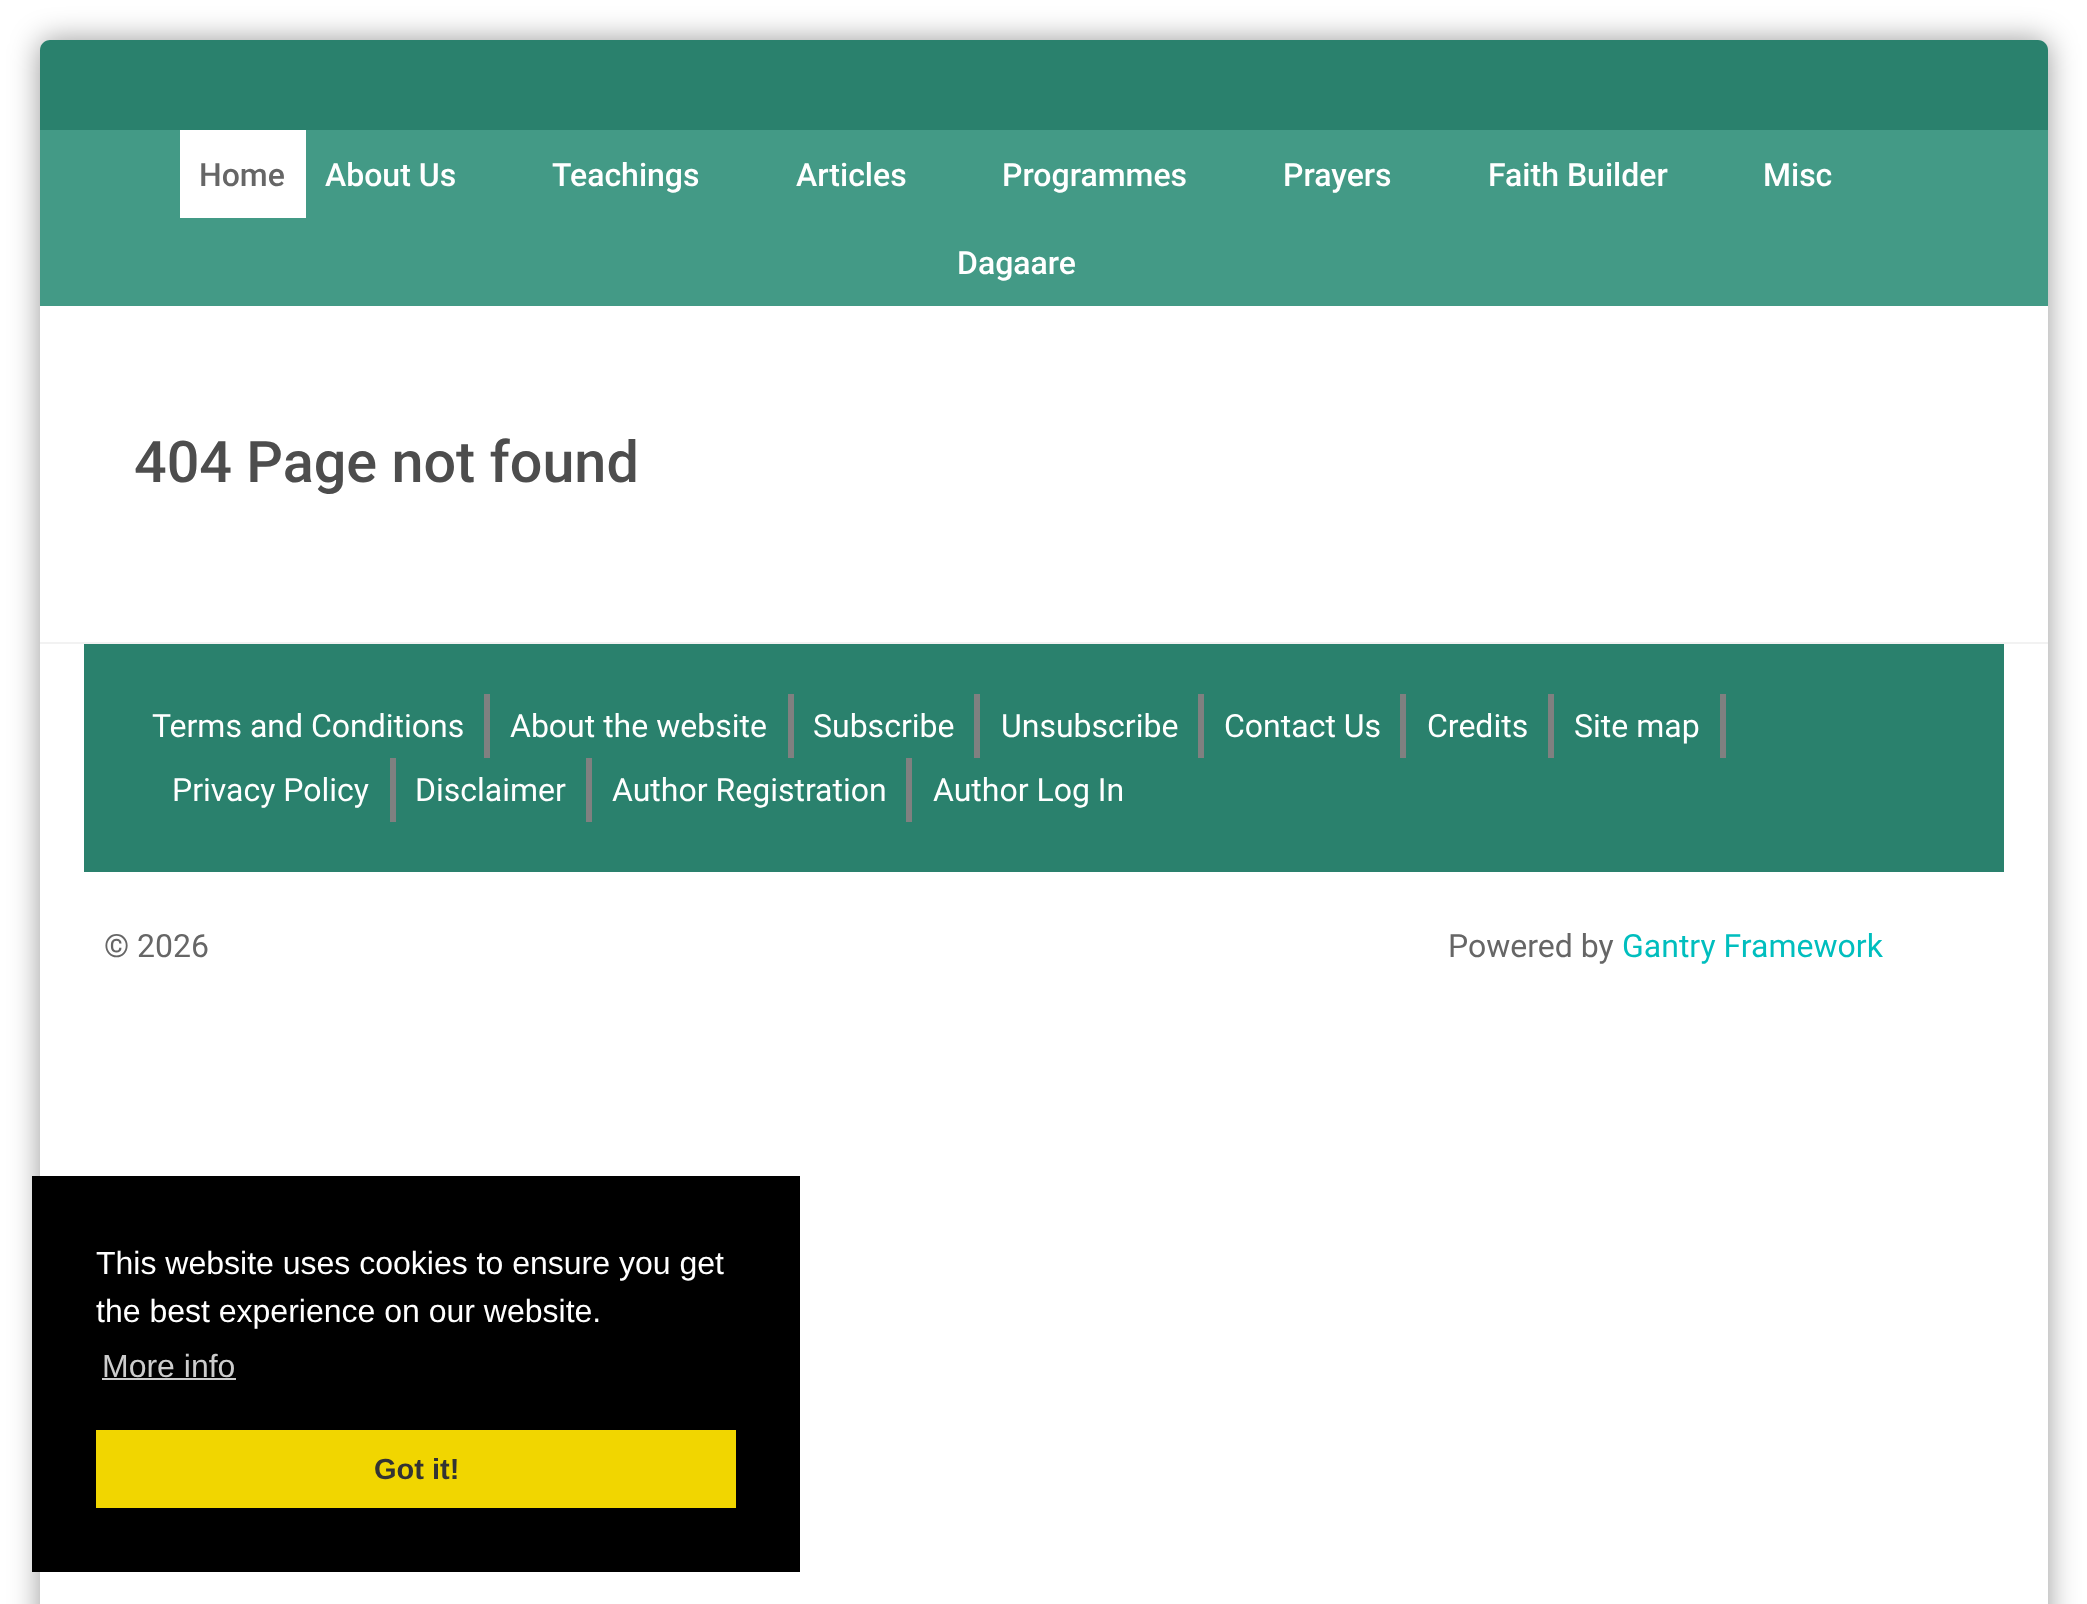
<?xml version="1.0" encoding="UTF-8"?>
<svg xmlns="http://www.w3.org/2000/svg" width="2087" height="1604">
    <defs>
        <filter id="blur1" x="-50%" y="-200%" width="200%" height="500%"><feGaussianBlur stdDeviation="15"/></filter>
    </defs>
    <rect width="100%" height="100%" fill="#FFFFFF"/>
    <rect x="40" y="40" width="2008" height="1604" rx="10" fill="#000000" fill-opacity="0.4" filter="url(#blur1)"/>
    <rect x="40" y="40" width="2008" height="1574" rx="10" fill="#FFFFFF"/>
    <path d="M 50 40 H 2038 C 2043.5 40 2048 44.5 2048 50 V 130 H 40 V 50 C 40 44.5 44.5 40 50 40 Z" fill="#2A816D"/>
    <rect x="40" y="130" width="2008" height="176" fill="#439A86"/>
    <rect x="180" y="130" width="126" height="88" fill="#FFFFFF"/>
    <text x="199" y="186" font-family="Roboto" font-size="32" font-weight="500" fill="#666666">Home</text>
    <text x="325" y="186" font-family="Roboto" font-size="32" font-weight="500" fill="#FFFFFF">About Us</text>
    <text x="552" y="186" font-family="Roboto" font-size="32" font-weight="500" fill="#FFFFFF">Teachings</text>
    <text x="796" y="186" font-family="Roboto" font-size="32" font-weight="500" fill="#FFFFFF">Articles</text>
    <text x="1002" y="186" font-family="Roboto" font-size="32" font-weight="500" fill="#FFFFFF">Programmes</text>
    <text x="1283" y="186" font-family="Roboto" font-size="32" font-weight="500" fill="#FFFFFF">Prayers</text>
    <text x="1488" y="186" font-family="Roboto" font-size="32" font-weight="500" fill="#FFFFFF">Faith Builder</text>
    <text x="1763" y="186" font-family="Roboto" font-size="32" font-weight="500" fill="#FFFFFF">Misc</text>
    <text x="957" y="274" font-family="Roboto" font-size="32" font-weight="500" fill="#FFFFFF">Dagaare</text>
    <text x="134" y="482" font-family="Roboto" font-size="57.5" font-weight="500" fill="#4D4D4D">404 Page not found</text>
    <rect x="40" y="642" width="2008" height="2" fill="#F2F2F2"/>
    <rect x="84" y="644" width="1920" height="228" fill="#2A816D"/>
    <rect x="484" y="694" width="6" height="64" fill="#808080"/>
    <text x="152" y="737" font-family="Roboto" font-size="32" fill="#FFFFFF">Terms and Conditions</text>
    <rect x="788" y="694" width="6" height="64" fill="#808080"/>
    <text x="510" y="737" font-family="Roboto" font-size="32" fill="#FFFFFF">About the website</text>
    <rect x="974" y="694" width="6" height="64" fill="#808080"/>
    <text x="813" y="737" font-family="Roboto" font-size="32" fill="#FFFFFF">Subscribe</text>
    <rect x="1198" y="694" width="6" height="64" fill="#808080"/>
    <text x="1001" y="737" font-family="Roboto" font-size="32" fill="#FFFFFF">Unsubscribe</text>
    <rect x="1400" y="694" width="6" height="64" fill="#808080"/>
    <text x="1224" y="737" font-family="Roboto" font-size="32" fill="#FFFFFF">Contact Us</text>
    <rect x="1548" y="694" width="6" height="64" fill="#808080"/>
    <text x="1427" y="737" font-family="Roboto" font-size="32" fill="#FFFFFF">Credits</text>
    <rect x="1720" y="694" width="6" height="64" fill="#808080"/>
    <text x="1574" y="737" font-family="Roboto" font-size="32" fill="#FFFFFF">Site map</text>
    <rect x="390" y="758" width="6" height="64" fill="#808080"/>
    <text x="172" y="801" font-family="Roboto" font-size="32" fill="#FFFFFF">Privacy Policy</text>
    <rect x="586" y="758" width="6" height="64" fill="#808080"/>
    <text x="415" y="801" font-family="Roboto" font-size="32" fill="#FFFFFF">Disclaimer</text>
    <rect x="906" y="758" width="6" height="64" fill="#808080"/>
    <text x="612" y="801" font-family="Roboto" font-size="32" fill="#FFFFFF">Author Registration</text>
    <text x="933" y="801" font-family="Roboto" font-size="32" fill="#FFFFFF">Author Log In</text>
    <text x="104" y="957" font-family="Roboto" font-size="32" fill="#666666">© 2026</text>
    <text x="1448" y="957" font-family="Roboto" font-size="32" fill="#666666">Powered by</text>
    <text x="1622" y="957" font-family="Roboto" font-size="32" fill="#00BEBE">Gantry Framework</text>
    <rect x="32" y="1176" width="768" height="396" fill="#000000"/>
    <text font-family="Liberation Sans" font-size="32" fill="#FFFFFF">
        <tspan x="96" y="1274">This website uses cookies to ensure you get</tspan>
        <tspan x="96" y="1322">the best experience on our website.</tspan>
    </text>
    <text x="102" y="1377" font-family="Liberation Sans" font-size="32" fill="#CCCCCC">More info</text>
    <rect x="102" y="1378" width="134" height="2" fill="#CCCCCC"/>
    <rect x="96" y="1430" width="640" height="78" fill="#F1D600"/>
    <text x="374" y="1479" font-family="Liberation Sans" font-size="29" font-weight="700" fill="#333333">Got it!</text>
</svg>
